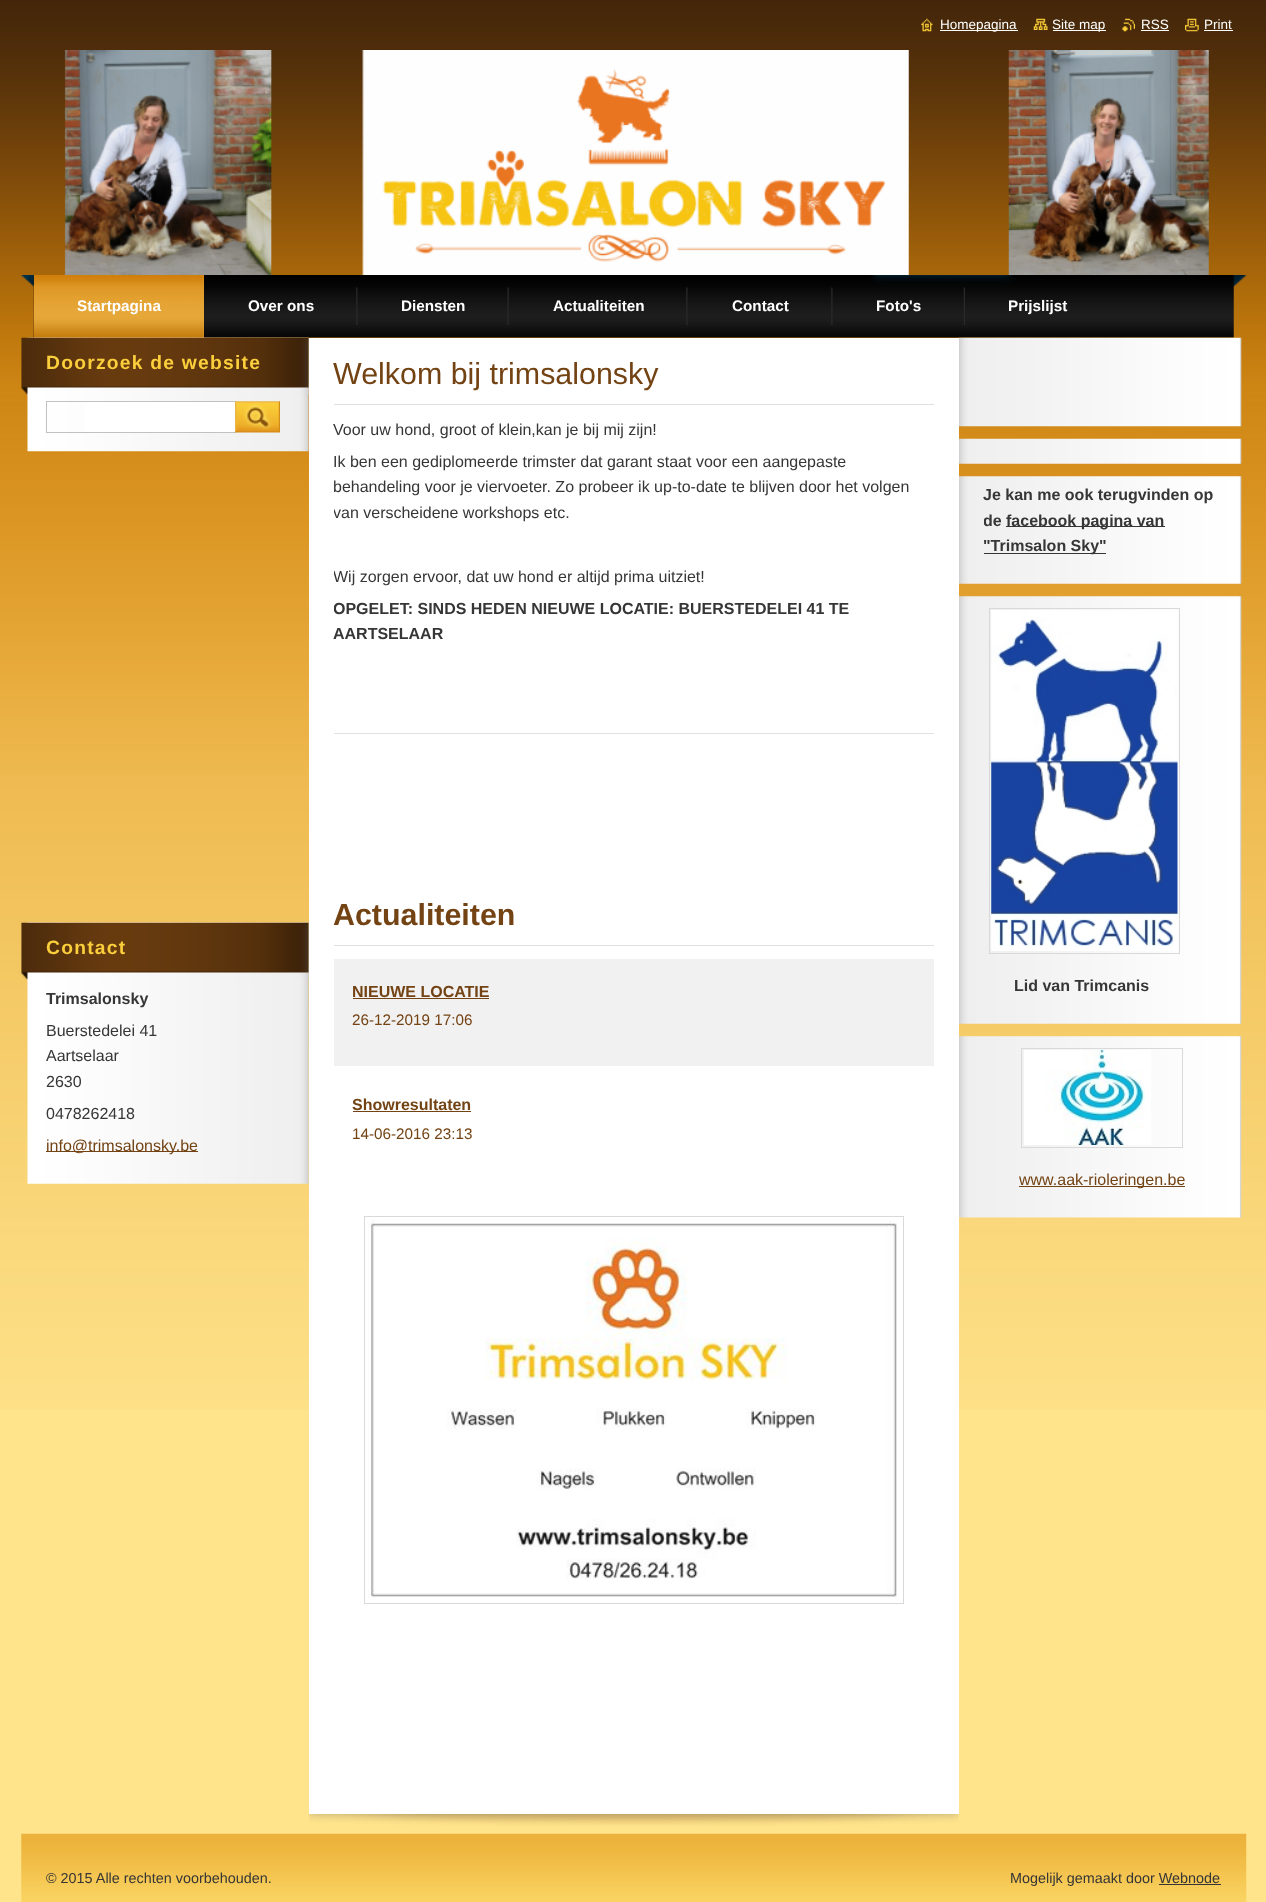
<?xml version="1.0" encoding="UTF-8"?>
<svg xmlns="http://www.w3.org/2000/svg" width="1266" height="1902">
    <defs>
        <clipPath id="clip1"><rect x="334" y="356" width="600" height="517"/></clipPath>
        <clipPath id="clip2"><rect x="984" y="476" width="237" height="108"/></clipPath>
    </defs>
    <rect width="100%" height="100%" fill="#FFE48C"/>
    <image x="0" y="0" width="1266" height="1410" href="img_01.png"/>
    <image x="921" y="18" width="12" height="14" href="img_02.png"/>
    <rect x="940" y="30" width="78" height="1" fill="#FFFFFF"/>
    <text x="940" y="29" font-family="Liberation Sans" font-size="13.5" fill="#FFFFFF">Homepagina</text>
    <image x="1033" y="18" width="15" height="12" href="img_03.png"/>
    <rect x="1053" y="30" width="53" height="1" fill="#FFFFFF"/>
    <text x="1052" y="29" font-family="Liberation Sans" font-size="13.5" fill="#FFFFFF">Site map</text>
    <image x="1122" y="18" width="13" height="14" href="img_04.png"/>
    <text x="1141" y="29" font-family="Liberation Sans" font-size="13.5" fill="#FFFFFF">RSS</text>
    <rect x="1141" y="30" width="28" height="1" fill="#FFFFFF"/>
    <image x="1185" y="18" width="14" height="14" href="img_05.png"/>
    <text x="1204" y="29" font-family="Liberation Sans" font-size="13.5" fill="#FFFFFF">Print</text>
    <rect x="1204" y="30" width="29" height="1" fill="#FFFFFF"/>
    <image x="64" y="50" width="1145" height="225" href="img_06.png"/>
    <image x="21" y="275" width="1226" height="63" href="img_07.png"/>
    <rect x="34" y="275" width="170" height="63" fill="#E5A535"/>
    <image x="33" y="275" width="171" height="63" href="img_08.png"/>
    <text x="77" y="311" font-family="Liberation Sans" font-size="15.25" font-weight="700" fill="#FFFFFF">Startpagina</text>
    <image x="356" y="287" width="2" height="38" href="img_09.png"/>
    <text x="248" y="311" font-family="Liberation Sans" font-size="15.25" font-weight="700" fill="#FFFFFF">Over ons</text>
    <image x="507" y="287" width="2" height="38" href="img_10.png"/>
    <text x="401" y="311" font-family="Liberation Sans" font-size="15.25" font-weight="700" fill="#FFFFFF">Diensten</text>
    <image x="686" y="287" width="2" height="38" href="img_09.png"/>
    <text x="553" y="311" font-family="Liberation Sans" font-size="15.25" font-weight="700" fill="#FFFFFF">Actualiteiten</text>
    <image x="831" y="287" width="2" height="38" href="img_09.png"/>
    <text x="732" y="311" font-family="Liberation Sans" font-size="15.25" font-weight="700" fill="#FFFFFF">Contact</text>
    <image x="963" y="287" width="2" height="38" href="img_11.png"/>
    <text x="876" y="311" font-family="Liberation Sans" font-size="15.25" font-weight="700" fill="#FFFFFF">Foto's</text>
    <text x="1008" y="311" font-family="Liberation Sans" font-size="15.25" font-weight="700" fill="#FFFFFF">Prijslijst</text>
    <image x="27" y="337" width="282" height="115" href="img_12.png"/>
    <image x="21" y="337" width="288" height="58" href="img_13.png"/>
    <text x="46" y="369" font-family="Liberation Sans" font-size="19.25" font-weight="700" letter-spacing="1.25" fill="#FBCF3C">Doorzoek de website</text>
    <rect x="85" y="402" width="150" height="30" fill="#FFFFFF"/>
    <rect x="46.5" y="401.5" width="189" height="31" fill="none" stroke="#C1C1C1"/>
    <image x="235" y="401" width="45" height="32" href="img_14.png"/>
    <image x="27" y="922" width="282" height="262" href="img_15.png"/>
    <image x="21" y="922" width="288" height="58" href="img_16.png"/>
    <text x="46" y="954" font-family="Liberation Sans" font-size="19.25" font-weight="700" letter-spacing="1.25" fill="#FBCF3C">Contact</text>
    <text x="46" y="1004" font-family="Liberation Sans" font-size="16" font-weight="700" fill="#363636">Trimsalonsky</text>
    <text font-family="Liberation Sans" font-size="16" fill="#363636">
        <tspan x="46" y="1036">Buerstedelei 41</tspan>
        <tspan x="46" y="1061">Aartselaar</tspan>
        <tspan x="46" y="1087">2630</tspan>
    </text>
    <text x="46" y="1119" font-family="Liberation Sans" font-size="16" fill="#363636">0478262418</text>
    <rect x="46" y="1151" width="152" height="1" fill="#734314"/>
    <text x="46" y="1151" font-family="Liberation Sans" font-size="16" fill="#734314">info@trimsalonsky.be</text>
    <image x="308" y="1814" width="651" height="12" href="img_17.png"/>
    <rect x="309" y="338" width="650" height="1476" fill="#FFFFFF"/>
    <rect x="334" y="404" width="600" height="1" fill="#E1E1E1"/>
    <text x="333" y="384" font-family="Liberation Sans" font-size="30.4" fill="#734314">Welkom bij trimsalonsky</text>
    <text x="333" y="435" font-family="Liberation Sans" font-size="16" fill="#363636">Voor uw hond, groot of klein,kan je bij mij zijn!</text>
    <text font-family="Liberation Sans" font-size="16" fill="#363636">
        <tspan x="333" y="467">Ik ben een gediplomeerde trimster dat garant staat voor een aangepaste</tspan>
        <tspan x="333" y="492">behandeling voor je viervoeter. Zo probeer ik up-to-date te blijven door het volgen</tspan>
    </text>
    <g clip-path="url(#clip1)">
        <text x="333" y="518" font-family="Liberation Sans" font-size="16" fill="#363636">van verscheidene workshops etc.</text>
        <text x="333" y="582" font-family="Liberation Sans" font-size="16" fill="#363636">Wij zorgen ervoor, dat uw hond er altijd prima uitziet!</text>
        <text x="333" y="614" font-family="Liberation Sans" font-size="16" font-weight="700" fill="#363636">OPGELET: SINDS HEDEN NIEUWE LOCATIE: BUERSTEDELEI 41 TE</text>
    </g>
    <text x="333" y="639" font-family="Liberation Sans" font-size="16" font-weight="700" fill="#363636">AARTSELAAR</text>
    <rect x="334" y="733" width="600" height="1" fill="#E1E1E1"/>
    <rect x="334" y="945" width="600" height="1" fill="#E1E1E1"/>
    <text x="333" y="925" font-family="Liberation Sans" font-size="30.4" font-weight="700" fill="#734314">Actualiteiten</text>
    <rect x="334" y="959" width="600" height="107" fill="#F1F1F1"/>
    <text x="352" y="997" font-family="Liberation Sans" font-size="16" font-weight="700" fill="#734314">NIEUWE LOCATIE</text>
    <rect x="353" y="998" width="136" height="1" fill="#734314"/>
    <text x="352" y="1025" font-family="Liberation Sans" font-size="15.25" fill="#734314">26-12-2019 17:06</text>
    <text x="352" y="1110" font-family="Liberation Sans" font-size="16" font-weight="700" fill="#734314">Showresultaten</text>
    <rect x="353" y="1111" width="118" height="1" fill="#734314"/>
    <text x="352" y="1139" font-family="Liberation Sans" font-size="15.25" fill="#734314">14-06-2016 23:13</text>
    <rect x="364.5" y="1216.5" width="539" height="387" fill="none" stroke="#D9D9D9"/>
    <image x="367" y="1220" width="530" height="378" href="img_18.png"/>
    <image x="959" y="337" width="283" height="90" href="img_19.png"/>
    <image x="959" y="438" width="283" height="26" href="img_20.png"/>
    <image x="959" y="476" width="283" height="108" href="img_21.png"/>
    <text x="983" y="500" font-family="Liberation Sans" font-size="16" font-weight="700" fill="#363636">Je kan me ook terugvinden op</text>
    <g clip-path="url(#clip2)">
        <text x="983" y="526" font-family="Liberation Sans" font-size="16" font-weight="700" fill="#363636">de</text>
    </g>
    <rect x="1006" y="526" width="159" height="1" fill="#363636"/>
    <text x="1006" y="526" font-family="Liberation Sans" font-size="16" font-weight="700" fill="#363636">facebook pagina van</text>
    <rect x="984" y="553" width="122" height="1" fill="#363636"/>
    <text x="983" y="551" font-family="Liberation Sans" font-size="16" font-weight="700" fill="#363636">"Trimsalon Sky"</text>
    <image x="959" y="596" width="283" height="428" href="img_22.png"/>
    <rect x="989.5" y="608.5" width="190" height="345" fill="none" stroke="#D9D9D9"/>
    <image x="991" y="610" width="187" height="341" href="img_23.png"/>
    <text x="1014" y="991" font-family="Liberation Sans" font-size="16" font-weight="700" fill="#363636">Lid van Trimcanis</text>
    <image x="959" y="1036" width="283" height="182" href="img_24.png"/>
    <rect x="1021.5" y="1048.5" width="161" height="99" fill="none" stroke="#D9D9D9"/>
    <image x="1024" y="1050" width="127" height="95" href="img_25.png"/>
    <rect x="1019" y="1186" width="166" height="1" fill="#734314"/>
    <text x="1019" y="1185" font-family="Liberation Sans" font-size="16" fill="#734314">www.aak-rioleringen.be</text>
    <image x="21" y="1833" width="1226" height="69" href="img_26.png"/>
    <text x="46" y="1883" font-family="Liberation Sans" font-size="14.4" fill="#363636">© 2015 Alle rechten voorbehouden.</text>
    <text x="1010" y="1883" font-family="Liberation Sans" font-size="14.4" fill="#363636">Mogelijk gemaakt door Webnode</text>
    <rect x="1159" y="1884" width="62" height="1" fill="#363636"/>
</svg>
